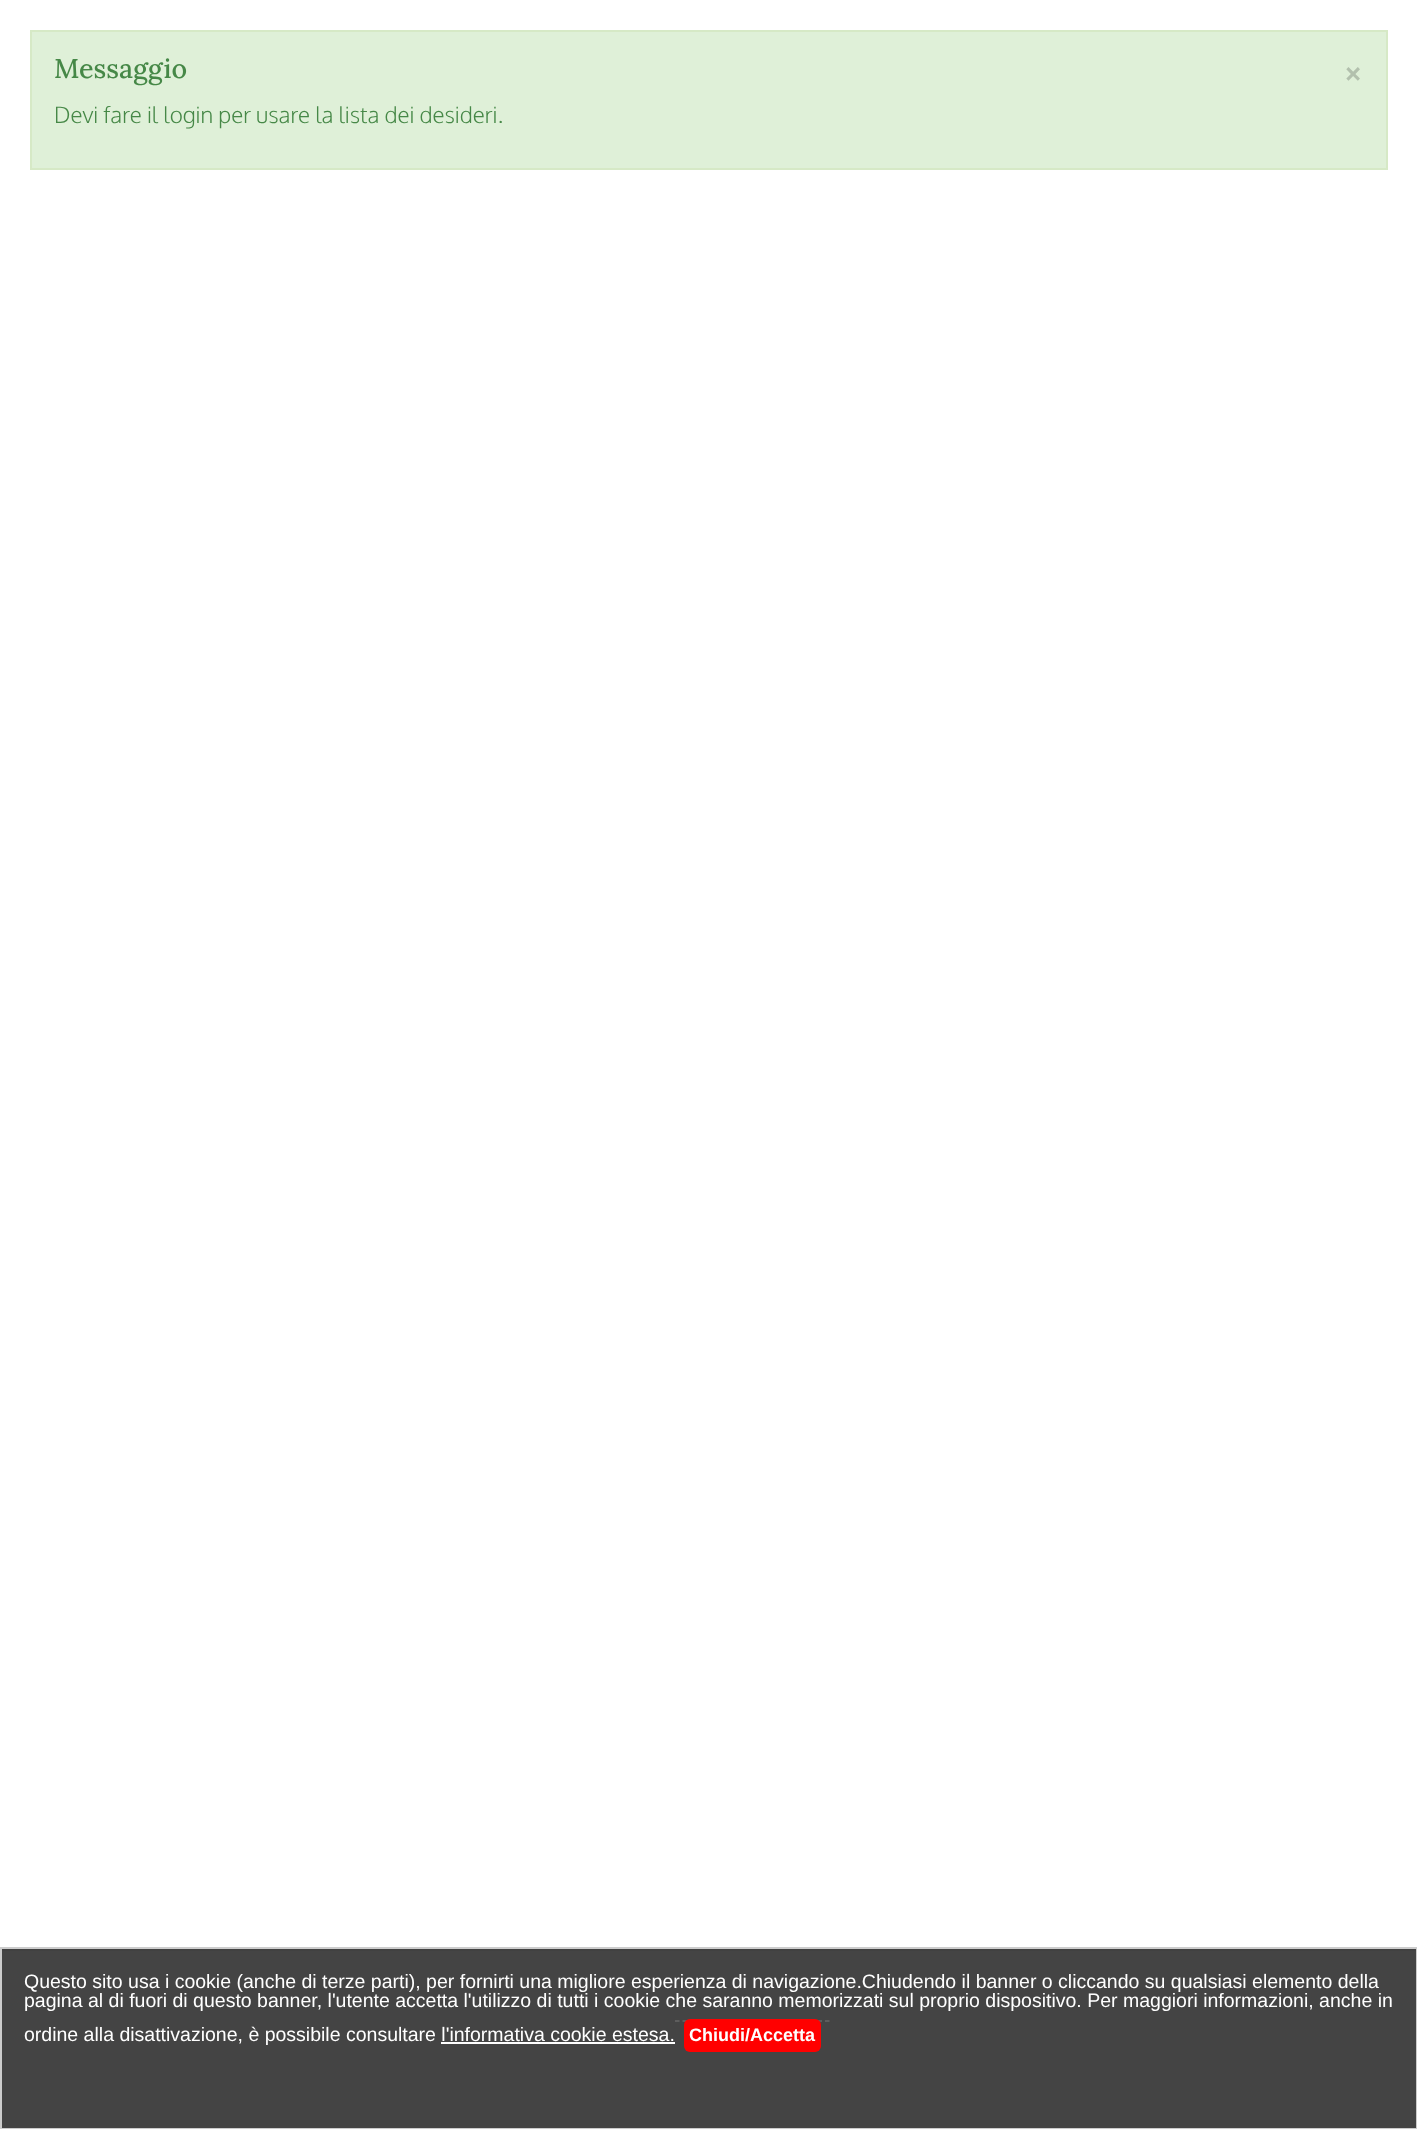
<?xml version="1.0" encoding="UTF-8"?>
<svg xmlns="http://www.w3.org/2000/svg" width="1417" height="2129">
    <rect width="100%" height="100%" fill="#FFFFFF"/>
    <rect x="31" y="31" width="1356" height="138" fill="#DFF0D8" stroke="#D6E9C6" stroke-width="2"/>
    <text x="54" y="78" font-family="Lora" font-size="27" font-weight="500" fill="#468847">Messaggio</text>
    <text x="1342" y="83" font-family="Oxygen" font-size="32" font-weight="700" fill="#B2C0AD">×</text>
    <text x="54" y="123" font-family="Oxygen" font-size="22.5" font-weight="300" fill="#468847">Devi fare il login per usare la lista dei desideri.</text>
    <rect x="2" y="1951" width="1414" height="177" fill="#444444"/>
    <rect x="1" y="1948" width="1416" height="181" fill="none" stroke="#CCCCCC" stroke-width="2"/>
    <rect x="2" y="1949" width="1414" height="2" fill="#414141"/>
    <text font-family="Liberation Sans" font-size="19.5" fill="#FFFFFF">
        <tspan x="24" y="1988">Questo sito usa i cookie (anche di terze parti), per fornirti una migliore esperienza di navigazione.Chiudendo il banner o cliccando su qualsiasi elemento della</tspan>
        <tspan x="24" y="2007">pagina al di fuori di questo banner, l'utente accetta l'utilizzo di tutti i cookie che saranno memorizzati sul proprio dispositivo. Per maggiori informazioni, anche in</tspan>
        <tspan x="24" y="2041">ordine alla disattivazione, è possibile consultare l'informativa cookie estesa.</tspan>
    </text>
    <path d="M 675 2021 H 829.5" fill="none" stroke="#666666" stroke-width="1.5" stroke-dasharray="4.5 3"/>
    <rect x="684" y="2019" width="137" height="33" rx="6" fill="#FF0000"/>
    <text x="689" y="2041" font-family="Liberation Sans" font-size="18" font-weight="700" fill="#FFFFFF">Chiudi/Accetta</text>
    <rect x="441" y="2042" width="234" height="2" fill="#FFFFFF"/>
</svg>
